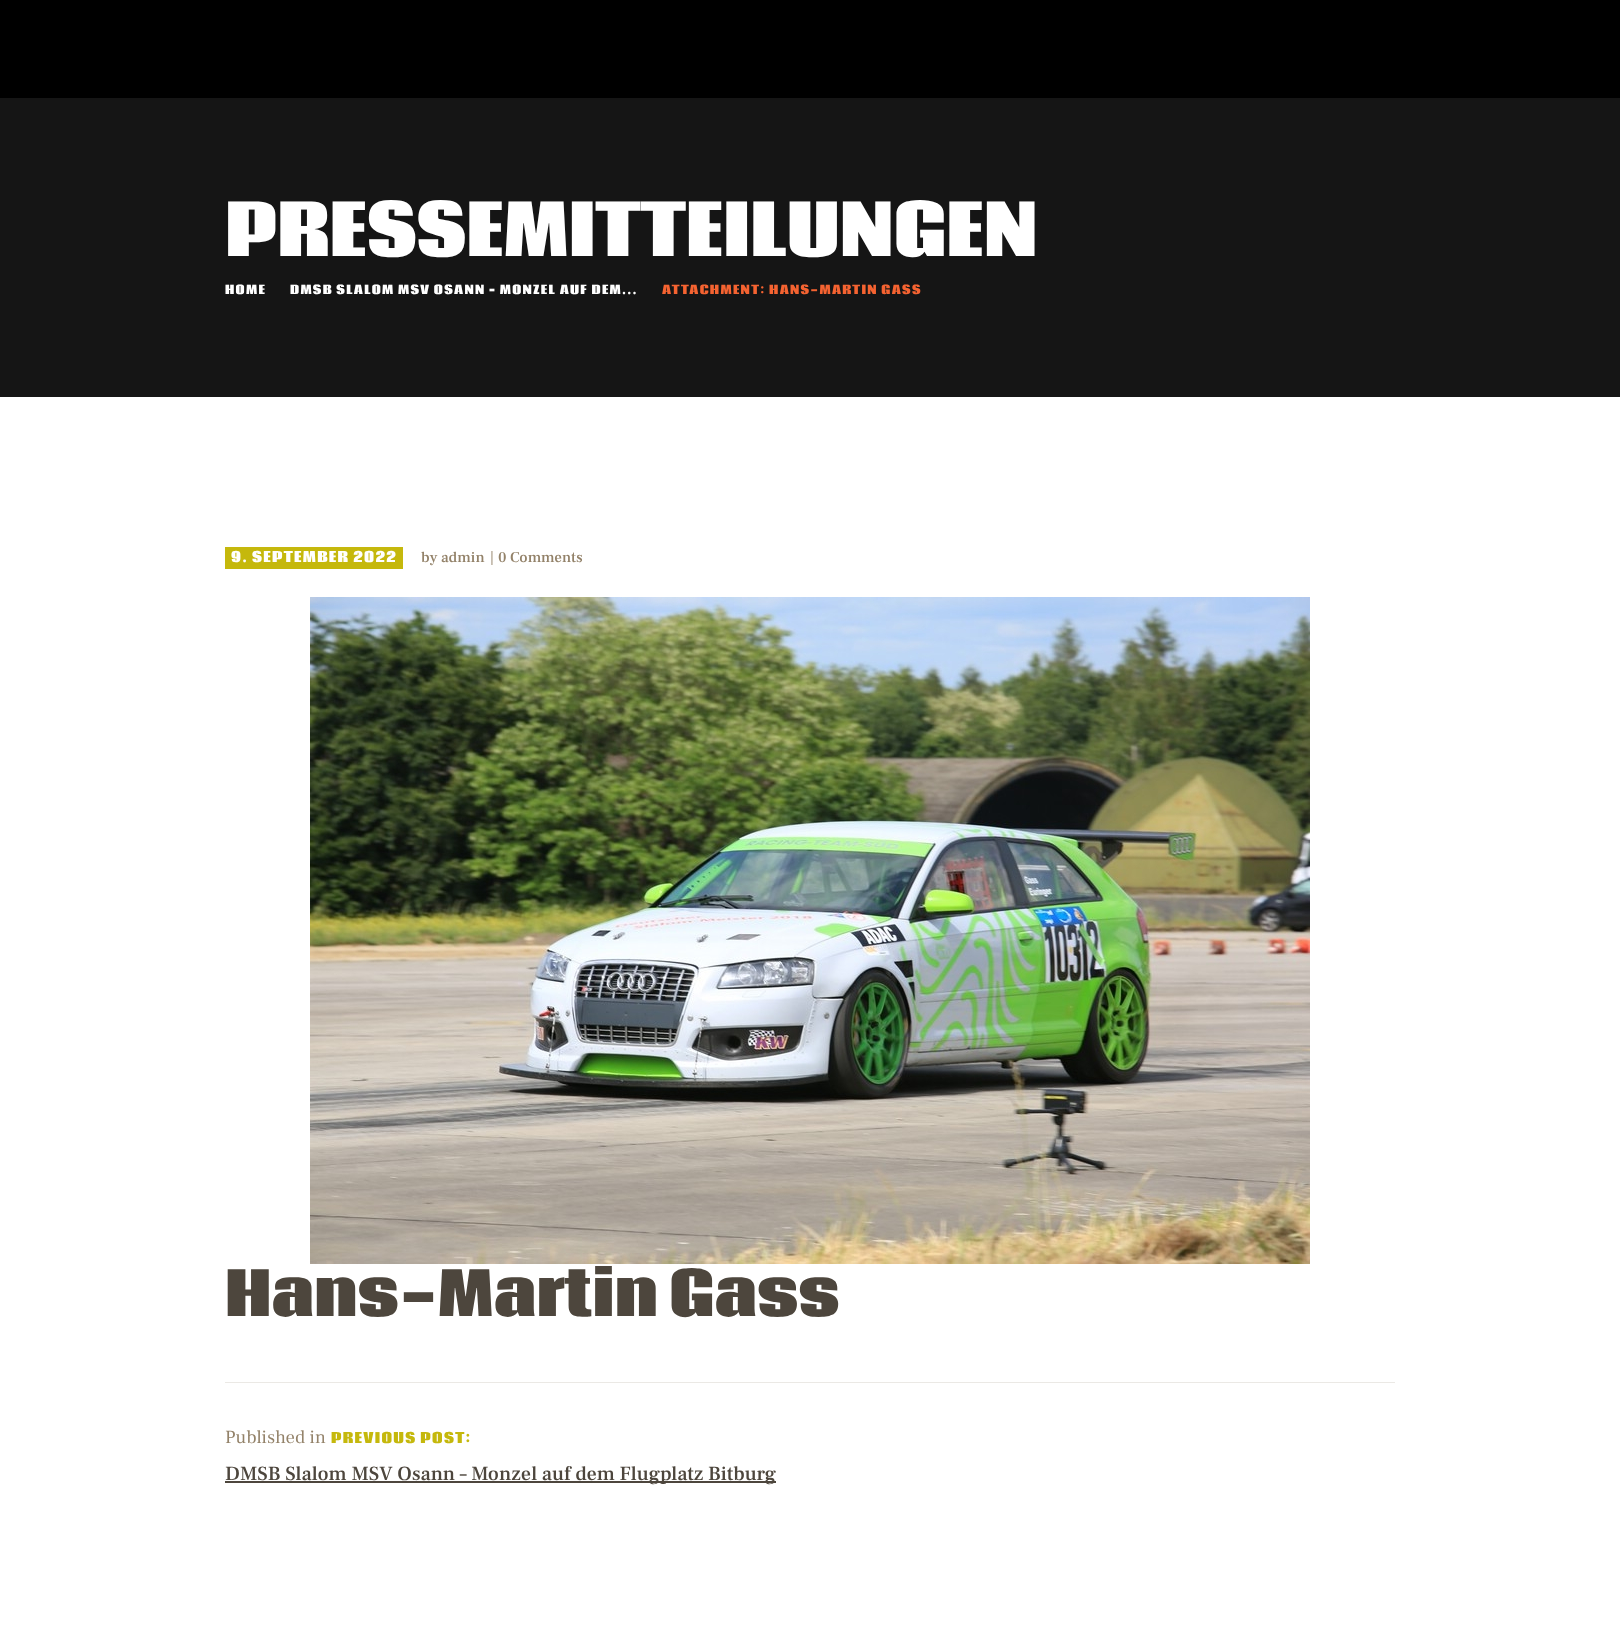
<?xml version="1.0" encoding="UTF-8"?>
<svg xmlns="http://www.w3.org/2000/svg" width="1620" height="1645">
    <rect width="100%" height="100%" fill="#FFFFFF"/>
    <rect x="0" y="0" width="1620" height="98" fill="#000000"/>
    <rect x="0" y="98" width="1620" height="299" fill="#151515"/>
    <text x="225" y="256" font-family="Coda" font-size="70" font-weight="800" fill="#FFFFFF">PRESSEMITTEILUNGEN</text>
    <text x="225" y="294" font-family="Coda" font-size="12" font-weight="800" letter-spacing="1.3" fill="#FFFFFF">HOME</text>
    <text x="290" y="294" font-family="Coda" font-size="12" font-weight="800" letter-spacing="1.3" fill="#FFFFFF">DMSB SLALOM MSV OSANN – MONZEL AUF DEM...</text>
    <text x="662" y="294" font-family="Coda" font-size="12" font-weight="800" letter-spacing="1.3" fill="#F56331">ATTACHMENT: HANS-MARTIN GASS</text>
    <rect x="225" y="547" width="178" height="22" fill="#C5B80C"/>
    <text x="231" y="562" font-family="Coda" font-size="14" font-weight="800" letter-spacing="1.3" fill="#FFFFFF">9. SEPTEMBER 2022</text>
    <text x="421" y="562" font-family="Frank Ruhl Libre" font-size="15" font-weight="500" fill="#938269">by admin</text>
    <text x="490" y="562" font-family="Frank Ruhl Libre" font-size="15" fill="#938269">|</text>
    <text x="498" y="562" font-family="Frank Ruhl Libre" font-size="15" font-weight="500" fill="#938269">0</text>
    <text x="510" y="562" font-family="Frank Ruhl Libre" font-size="15" font-weight="500" fill="#938269">Comments</text>
    <image x="310" y="597" width="1000" height="667" href="img_01.png"/>
    <text x="225" y="1316" font-family="Coda" font-size="60" font-weight="800" fill="#4D463D">Hans-Martin Gass</text>
    <rect x="225" y="1382" width="1170" height="1" fill="#EBE9E5"/>
    <text x="225" y="1443" font-family="Frank Ruhl Libre" font-size="18.5" fill="#938269">Published in</text>
    <text x="331" y="1443" font-family="Coda" font-size="14" font-weight="800" letter-spacing="1.3" fill="#C5B80C">PREVIOUS POST:</text>
    <rect x="225" y="1481" width="551" height="2" fill="#4D463D"/>
    <text x="225" y="1480" font-family="Frank Ruhl Libre" font-size="20" font-weight="500" fill="#4D463D">DMSB Slalom MSV Osann – Monzel auf dem Flugplatz Bitburg</text>
</svg>
